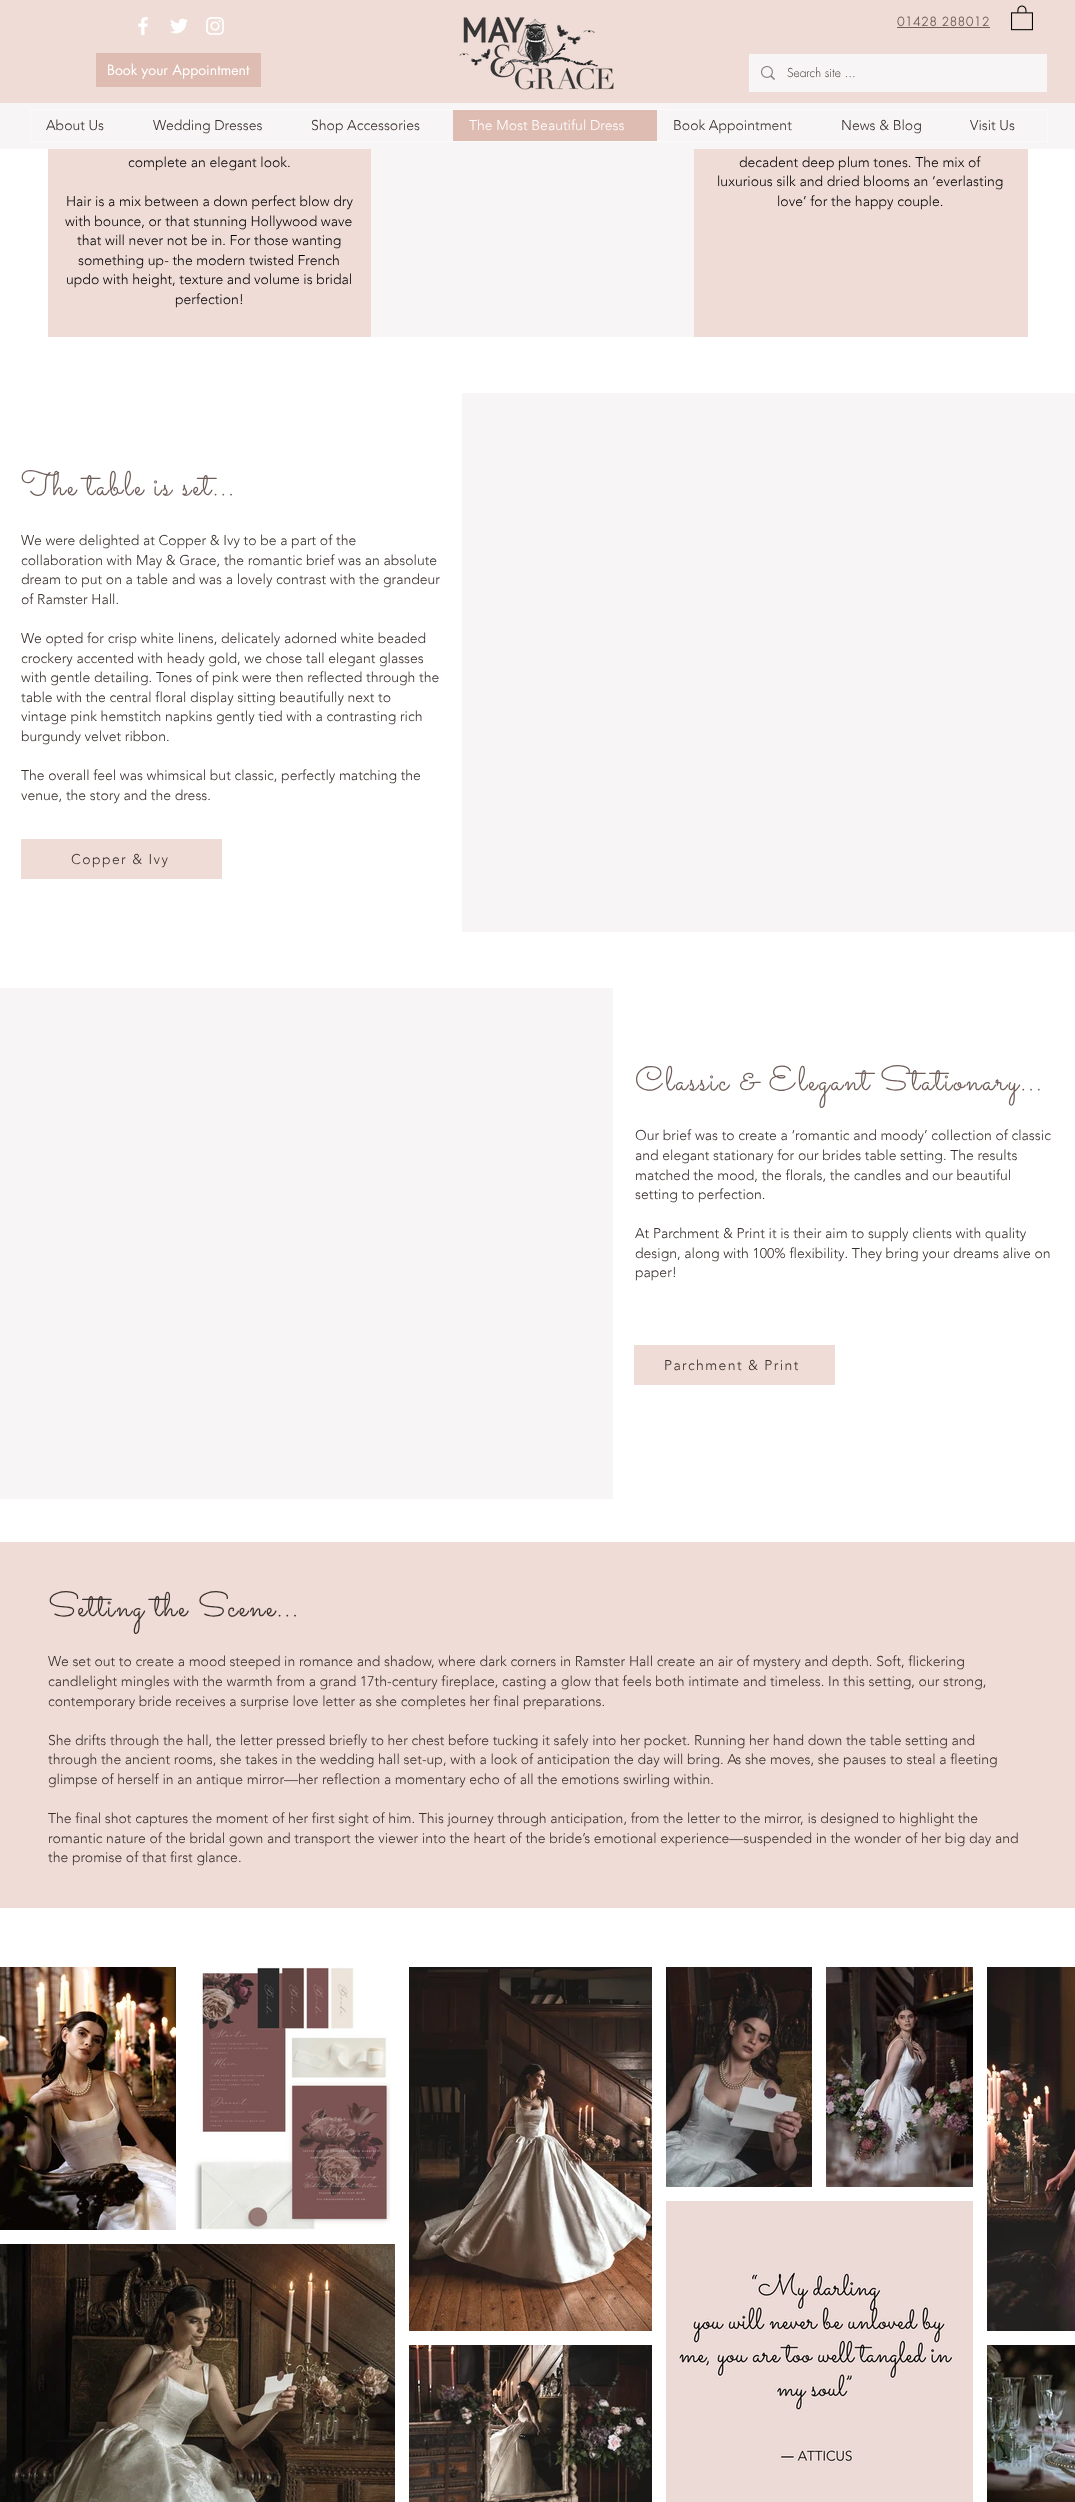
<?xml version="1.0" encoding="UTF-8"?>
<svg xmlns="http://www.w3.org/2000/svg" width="1075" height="2502">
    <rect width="100%" height="100%" fill="#FFFFFF"/>
    <rect x="0" y="0" width="1075" height="103" fill="#EFDCD6"/>
    <image x="138" y="17" width="10" height="18" href="img_01.png"/>
    <image x="170" y="18" width="18" height="16" href="img_02.png"/>
    <image x="206" y="17" width="18" height="18" href="img_03.png"/>
    <rect x="96" y="53" width="165" height="34" fill="#DEBCB1"/>
    <text x="107" y="75" font-family="futura" font-size="14" fill="#FFFFFF">Book your Appointment</text>
    <image x="459" y="16" width="155" height="74" href="img_04.png"/>
    <text x="897" y="26" font-family="futura" font-size="12" font-weight="700" letter-spacing="0.6" fill="#6F5E59">01428 288012</text>
    <rect x="897" y="27" width="93" height="1" fill="#6F5E59"/>
    <image x="1011" y="5" width="22" height="26" href="img_05.png"/>
    <rect x="749" y="54" width="298" height="38" fill="#F7F5F5"/>
    <image x="761" y="66" width="14" height="14" href="img_06.png"/>
    <text x="787" y="77" font-family="futura" font-size="12" font-weight="300" fill="#382F2C">Search site ...</text>
    <rect x="0" y="103" width="1075" height="46" fill="#F7F5F5"/>
    <rect x="30.5" y="109.5" width="1017" height="32" fill="none" stroke="#FAFAFA"/>
    <text x="46" y="130" font-family="'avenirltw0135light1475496'" font-size="14" font-weight="300" fill="#382F2C">About Us</text>
    <text x="153" y="130" font-family="'avenirltw0135light1475496'" font-size="14" font-weight="300" fill="#382F2C">Wedding Dresses</text>
    <text x="311" y="130" font-family="'avenirltw0135light1475496'" font-size="14" font-weight="300" fill="#382F2C">Shop Accessories</text>
    <rect x="453" y="110" width="204" height="31" fill="#DEBCB1"/>
    <text x="469" y="130" font-family="'avenirltw0135light1475496'" font-size="14" font-weight="300" fill="#FFFFFF">The Most Beautiful Dress</text>
    <text x="673" y="130" font-family="'avenirltw0135light1475496'" font-size="14" font-weight="300" fill="#382F2C">Book Appointment</text>
    <text x="841" y="130" font-family="'avenirltw0135light1475496'" font-size="14" font-weight="300" fill="#382F2C">News &amp; Blog</text>
    <text x="970" y="130" font-family="'avenirltw0135light1475496'" font-size="14" font-weight="300" fill="#382F2C">Visit Us</text>
    <rect x="48" y="149" width="323" height="188" fill="#EFDCD7"/>
    <text x="128" y="167" font-family="'avenirltw0135light1475496'" font-size="14" font-weight="300" fill="#000000">complete an elegant look.</text>
    <text x="66" y="206" font-family="'avenirltw0135light1475496'" font-size="14" font-weight="300" fill="#000000">Hair is a mix between a down perfect blow dry</text>
    <text x="65" y="226" font-family="'avenirltw0135light1475496'" font-size="14" font-weight="300" fill="#000000">with bounce, or that stunning Hollywood wave</text>
    <text x="77" y="245" font-family="'avenirltw0135light1475496'" font-size="14" font-weight="300" fill="#000000">that will never not be in. For those wanting</text>
    <text x="78" y="265" font-family="'avenirltw0135light1475496'" font-size="14" font-weight="300" fill="#000000">something up- the modern twisted French</text>
    <text x="66" y="284" font-family="'avenirltw0135light1475496'" font-size="14" font-weight="300" fill="#000000">updo with height, texture and volume is bridal</text>
    <text x="175" y="304" font-family="'avenirltw0135light1475496'" font-size="14" font-weight="300" fill="#000000">perfection!</text>
    <rect x="371" y="149" width="323" height="188" fill="#F7F5F5"/>
    <rect x="694" y="149" width="334" height="188" fill="#EFDCD6"/>
    <text x="739" y="167" font-family="'avenirltw0135light1475496'" font-size="14" font-weight="300" fill="#000000">decadent deep plum tones. The mix of</text>
    <text x="717" y="186" font-family="'avenirltw0135light1475496'" font-size="14" font-weight="300" fill="#000000">luxurious silk and dried blooms an ‘everlasting</text>
    <text x="777" y="206" font-family="'avenirltw0135light1475496'" font-size="14" font-weight="300" fill="#000000">love’ for the happy couple.</text>
    <text x="21" y="495" font-family="Sacramento" font-size="34" letter-spacing="1.7" fill="#6F5E59">The table is set...</text>
    <text font-family="'avenirltw0135light1475496'" font-size="14" font-weight="300" fill="#382F2C">
        <tspan x="21" y="545">We were delighted at Copper &amp; Ivy to be a part of the</tspan>
        <tspan x="21" y="565">collaboration with May &amp; Grace, the romantic brief was an absolute</tspan>
        <tspan x="21" y="584">dream to put on a table and was a lovely contrast with the grandeur</tspan>
        <tspan x="21" y="604">of Ramster Hall.</tspan>
    </text>
    <text font-family="'avenirltw0135light1475496'" font-size="14" font-weight="300" fill="#382F2C">
        <tspan x="21" y="643">We opted for crisp white linens, delicately adorned white beaded</tspan>
        <tspan x="21" y="663">crockery accented with heady gold, we chose tall elegant glasses</tspan>
        <tspan x="21" y="682">with gentle detailing. Tones of pink were then reflected through the</tspan>
        <tspan x="21" y="702">table with the central floral display sitting beautifully next to</tspan>
        <tspan x="21" y="721">vintage pink hemstitch napkins gently tied with a contrasting rich</tspan>
        <tspan x="21" y="741">burgundy velvet ribbon.</tspan>
    </text>
    <text font-family="'avenirltw0135light1475496'" font-size="14" font-weight="300" fill="#382F2C">
        <tspan x="21" y="780">The overall feel was whimsical but classic, perfectly matching the</tspan>
        <tspan x="21" y="800">venue, the story and the dress.</tspan>
    </text>
    <rect x="21" y="839" width="201" height="40" fill="#EFDCD6"/>
    <text x="71" y="864" font-family="'avenirltw0135light1475496'" font-size="14" font-weight="300" letter-spacing="1.4" fill="#382F2C">Copper &amp; Ivy</text>
    <rect x="462" y="393" width="613" height="539" fill="#F7F5F5"/>
    <rect x="0" y="988" width="613" height="511" fill="#F7F5F5"/>
    <text x="635" y="1090" font-family="Sacramento" font-size="34" letter-spacing="1.7" fill="#6F5E59">Classic &amp; Elegant Stationary...</text>
    <text font-family="'avenirltw0135light1475496'" font-size="14" font-weight="300" fill="#382F2C">
        <tspan x="635" y="1140">Our brief was to create a ‘romantic and moody’ collection of classic</tspan>
        <tspan x="635" y="1160">and elegant stationary for our brides table setting. The results</tspan>
        <tspan x="635" y="1180">matched the mood, the florals, the candles and our beautiful</tspan>
        <tspan x="635" y="1199">setting to perfection.</tspan>
    </text>
    <text font-family="'avenirltw0135light1475496'" font-size="14" font-weight="300" fill="#382F2C">
        <tspan x="635" y="1238">At Parchment &amp; Print it is their aim to supply clients with quality</tspan>
        <tspan x="635" y="1258">design, along with 100% flexibility. They bring your dreams alive on</tspan>
        <tspan x="635" y="1277">paper!</tspan>
    </text>
    <rect x="634" y="1345" width="201" height="40" fill="#EFDCD6"/>
    <text x="664" y="1370" font-family="'avenirltw0135light1475496'" font-size="14" font-weight="300" letter-spacing="1.4" fill="#382F2C">Parchment &amp; Print</text>
    <rect x="0" y="1542" width="1075" height="366" fill="#EFDCD7"/>
    <text x="48" y="1616" font-family="Sacramento" font-size="34" letter-spacing="1.7" fill="#382F2C">Setting the Scene...</text>
    <text font-family="'avenirltw0135light1475496'" font-size="14" font-weight="300" fill="#382F2C">
        <tspan x="48" y="1666">We set out to create a mood steeped in romance and shadow, where dark corners in Ramster Hall create an air of mystery and depth. Soft, flickering</tspan>
        <tspan x="48" y="1686">candlelight mingles with the warmth from a grand 17th-century fireplace, casting a glow that feels both intimate and timeless. In this setting, our strong,</tspan>
        <tspan x="48" y="1706">contemporary bride receives a surprise love letter as she completes her final preparations.</tspan>
    </text>
    <text font-family="'avenirltw0135light1475496'" font-size="14" font-weight="300" fill="#382F2C">
        <tspan x="48" y="1745">She drifts through the hall, the letter pressed briefly to her chest before tucking it safely into her pocket. Running her hand down the table setting and</tspan>
        <tspan x="48" y="1764">through the ancient rooms, she takes in the wedding hall set-up, with a look of anticipation the day will bring. As she moves, she pauses to steal a fleeting</tspan>
        <tspan x="48" y="1784">glimpse of herself in an antique mirror—her reflection a momentary echo of all the emotions swirling within.</tspan>
    </text>
    <text font-family="'avenirltw0135light1475496'" font-size="14" font-weight="300" fill="#382F2C">
        <tspan x="48" y="1823">The final shot captures the moment of her first sight of him. This journey through anticipation, from the letter to the mirror, is designed to highlight the</tspan>
        <tspan x="48" y="1843">romantic nature of the bridal gown and transport the viewer into the heart of the bride’s emotional experience—suspended in the wonder of her big day and</tspan>
        <tspan x="48" y="1862">the promise of that first glance.</tspan>
    </text>
    <image x="0" y="1967" width="176" height="263" href="img_07.png"/>
    <image x="194" y="1967" width="197" height="263" href="img_08.png"/>
    <image x="0" y="2244" width="395" height="258" href="img_09.png"/>
    <image x="409" y="1967" width="243" height="364" href="img_10.png"/>
    <image x="409" y="2345" width="243" height="157" href="img_11.png"/>
    <image x="666" y="1967" width="146" height="220" href="img_12.png"/>
    <image x="826" y="1967" width="147" height="220" href="img_13.png"/>
    <image x="666" y="2201" width="307" height="301" href="img_14.png"/>
    <image x="987" y="1967" width="88" height="364" href="img_15.png"/>
    <image x="987" y="2345" width="88" height="157" href="img_16.png"/>
</svg>
